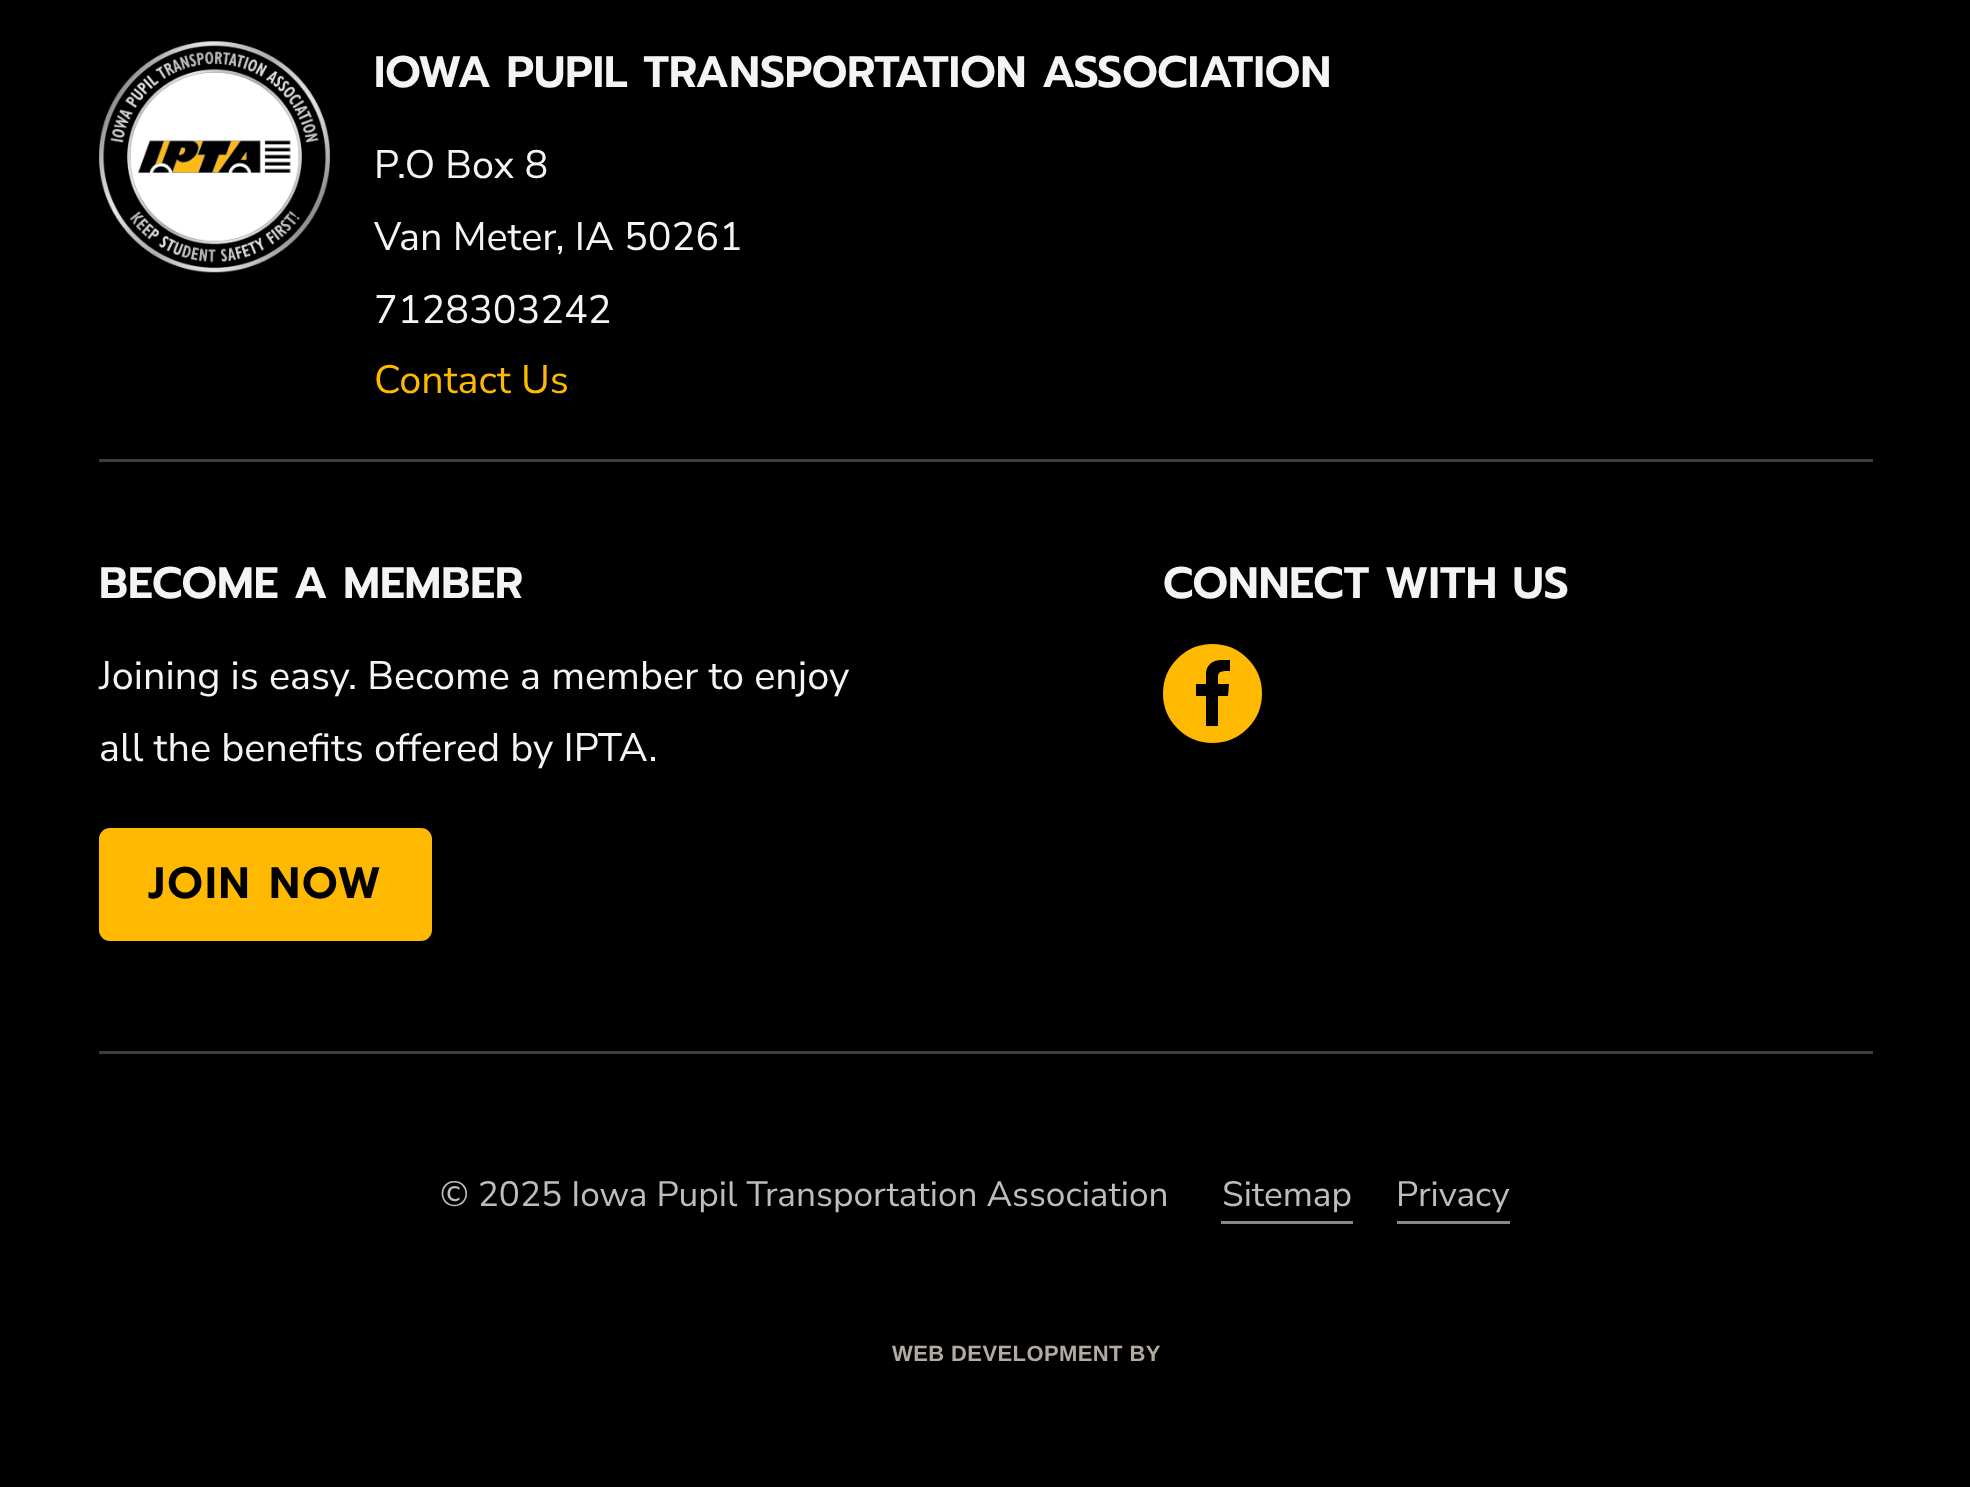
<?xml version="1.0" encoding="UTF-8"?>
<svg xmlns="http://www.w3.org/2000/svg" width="1970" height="1487">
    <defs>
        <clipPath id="clip1"><rect x="1180" y="660" width="66" height="66"/></clipPath>
    </defs>
    <rect width="100%" height="100%" fill="#000000"/>
    <rect x="99" y="459" width="1774" height="3" fill="#403E38"/>
    <image x="99" y="41" width="231" height="232" href="img_01.png"/>
    <text x="374" y="87" font-family="Prompt" font-size="44" font-weight="600" fill="#F4F4F4">IOWA PUPIL TRANSPORTATION ASSOCIATION</text>
    <text font-family="Nunito Sans" font-size="39.6" fill="#F4F4F4">
        <tspan x="374" y="178">P.O Box 8</tspan>
        <tspan x="374" y="250">Van Meter, IA 50261</tspan>
        <tspan x="374" y="323">7128303242</tspan>
    </text>
    <text x="374" y="393" font-family="Nunito Sans" font-size="39.6" fill="#FFB901">Contact Us</text>
    <rect x="99" y="1051" width="1774" height="3" fill="#403E38"/>
    <text x="99" y="598" font-family="Prompt" font-size="44" font-weight="600" fill="#F4F4F4">BECOME A MEMBER</text>
    <text font-family="Nunito Sans" font-size="39.6" fill="#F4F4F4">
        <tspan x="99" y="689">Joining is easy. Become a member to enjoy</tspan>
        <tspan x="99" y="761">all the benefits offered by IPTA.</tspan>
    </text>
    <rect x="102" y="831" width="327" height="107" rx="8" fill="#FFB901" stroke="#FFB901" stroke-width="6"/>
    <text x="148" y="898" font-family="Prompt" font-size="44" font-weight="600" letter-spacing="2.25" fill="#000000">JOIN NOW</text>
    <text x="1163" y="598" font-family="Prompt" font-size="44" font-weight="600" fill="#F4F4F4">CONNECT WITH US</text>
    <circle cx="1212.5" cy="693.5" r="48" fill="#FFB901" stroke="#FFB901" stroke-width="3"/>
    <g clip-path="url(#clip1)">
        <path d="M 1218 726 V 696 H 1228 L 1229 684 H 1218 C 1218 672 1217 671 1230 671 V 660 C 1220 659 1208 660 1206 672 V 684 H 1196 V 696 H 1206 V 726 Z" fill="#000000"/>
    </g>
    <text x="440" y="1206" font-family="Nunito Sans" font-size="35.2" fill="#BDBDBD">© 2025 Iowa Pupil Transportation Association</text>
    <text x="1222" y="1206" font-family="Nunito Sans" font-size="35.2" fill="#BDBDBD">Sitemap</text>
    <rect x="1221" y="1221" width="132" height="3" fill="#888888"/>
    <text x="1396" y="1206" font-family="Nunito Sans" font-size="35.2" fill="#BDBDBD">Privacy</text>
    <rect x="1397" y="1221" width="113" height="3" fill="#888888"/>
    <text x="892" y="1361" font-family="Liberation Sans" font-size="22" font-weight="700" letter-spacing="0.4" fill="#B1ABA2">WEB DEVELOPMENT BY</text>
</svg>
